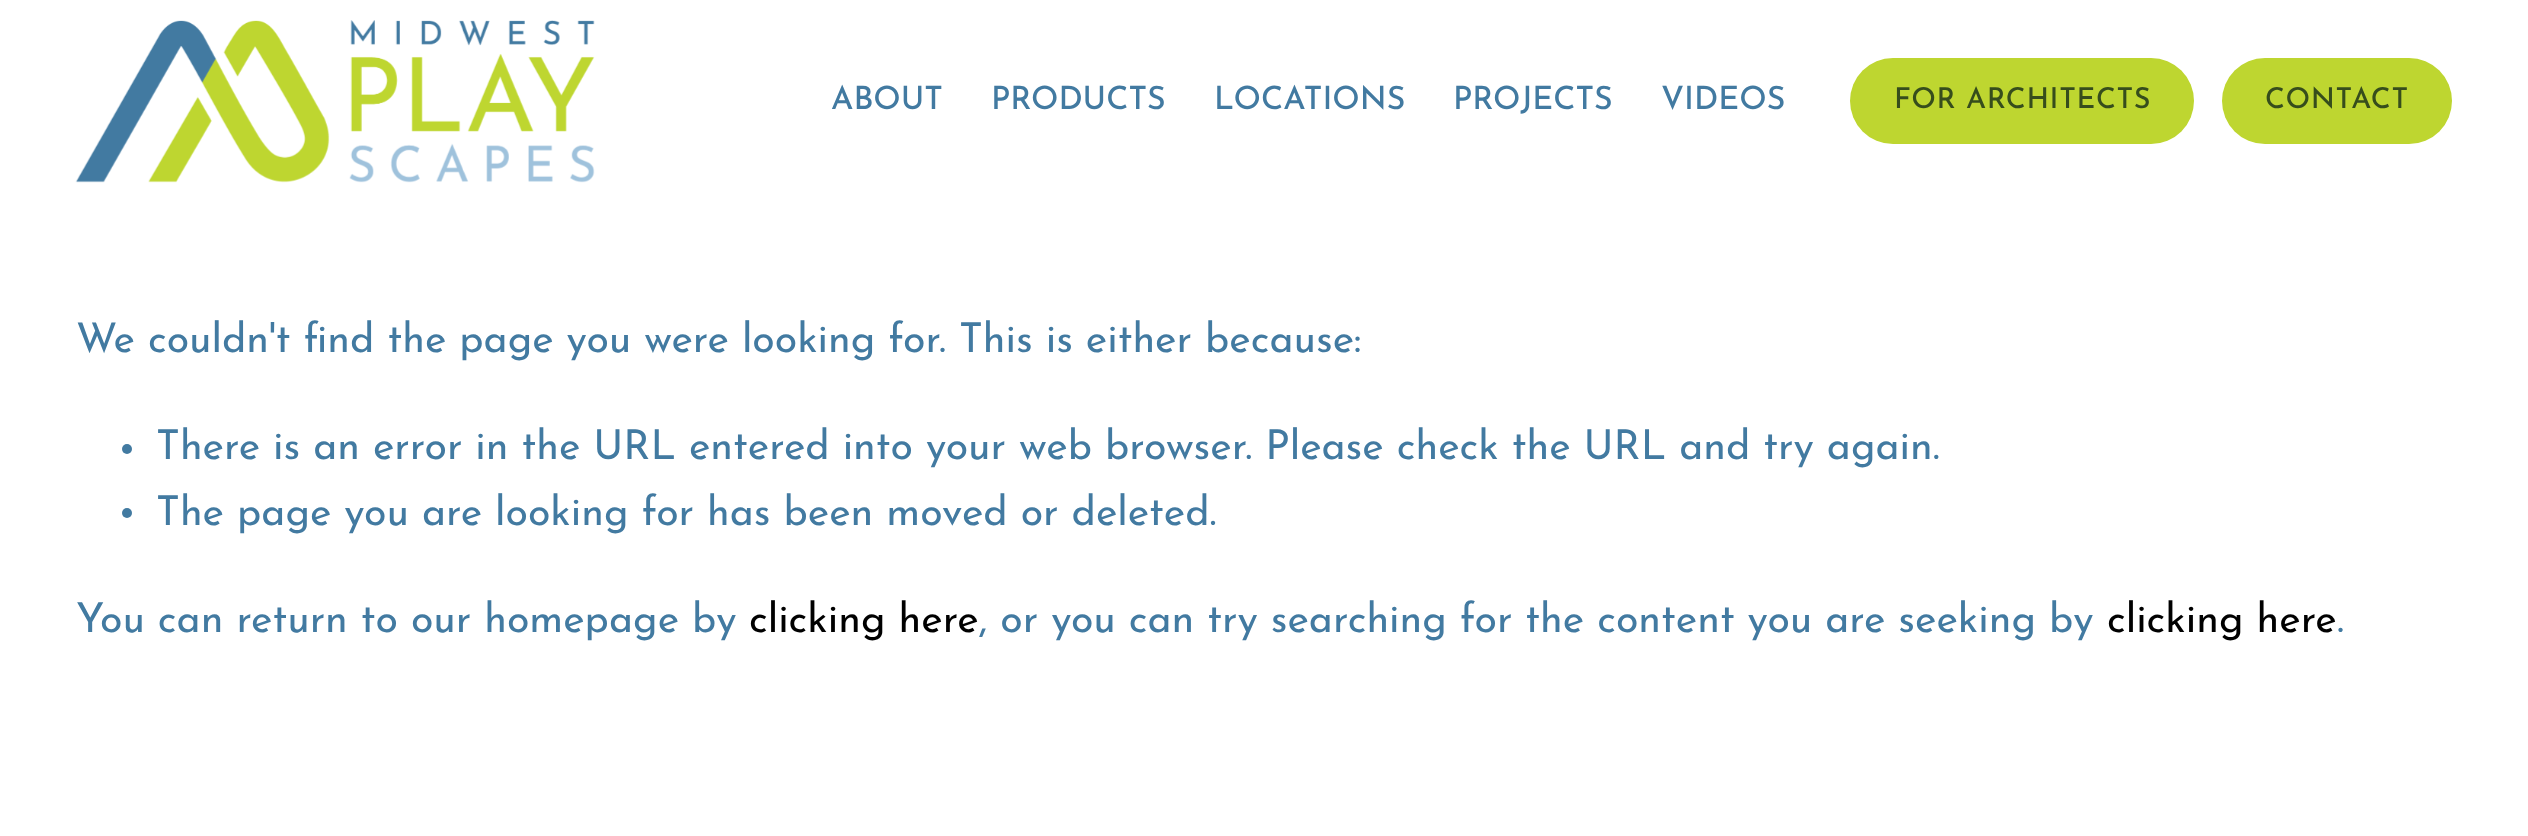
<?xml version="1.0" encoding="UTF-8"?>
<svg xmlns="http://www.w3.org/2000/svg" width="2528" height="836">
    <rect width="100%" height="100%" fill="#FFFFFF"/>
    <image x="75" y="20" width="520" height="163" href="img_01.png"/>
    <text x="831" y="109" font-family="Josefin Sans" font-size="32" font-weight="500" fill="#427AA1">ABOUT</text>
    <text x="991" y="109" font-family="Josefin Sans" font-size="32" font-weight="500" fill="#427AA1">PRODUCTS</text>
    <text x="1214" y="109" font-family="Josefin Sans" font-size="32" font-weight="500" fill="#427AA1">LOCATIONS</text>
    <text x="1453" y="109" font-family="Josefin Sans" font-size="32" font-weight="500" fill="#427AA1">PROJECTS</text>
    <text x="1661" y="109" font-family="Josefin Sans" font-size="32" font-weight="500" fill="#427AA1">VIDEOS</text>
    <rect x="1850" y="58" width="344" height="86" rx="43" fill="#BED630"/>
    <text x="1894" y="108" font-family="Josefin Sans" font-size="28.75" font-weight="500" letter-spacing="0.6" fill="#364D1C">FOR ARCHITECTS</text>
    <rect x="2222" y="58" width="230" height="86" rx="43" fill="#BED630"/>
    <text x="2265" y="108" font-family="Josefin Sans" font-size="28.75" font-weight="500" letter-spacing="0.6" fill="#364D1C">CONTACT</text>
    <text x="76" y="352" font-family="Josefin Sans" font-size="41.1" fill="#427AA1">We couldn't find the page you were looking for. This is either because:</text>
    <circle cx="127" cy="449" r="5" fill="#427AA1"/>
    <text x="156" y="459" font-family="Josefin Sans" font-size="41.1" fill="#427AA1">There is an error in the URL entered into your web browser. Please check the URL and try again.</text>
    <circle cx="127" cy="513" r="5" fill="#427AA1"/>
    <text x="156" y="525" font-family="Josefin Sans" font-size="41.1" fill="#427AA1">The page you are looking for has been moved or deleted.</text>
    <text x="76" y="632" font-family="Josefin Sans" font-size="41.1" fill="#427AA1">You can return to our homepage by</text>
    <text x="749" y="632" font-family="Josefin Sans" font-size="41.1" fill="#000000">clicking here</text>
    <text x="979" y="632" font-family="Josefin Sans" font-size="41.1" fill="#427AA1">, or you can try searching for the content you are seeking by</text>
    <text x="2107" y="632" font-family="Josefin Sans" font-size="41.1" fill="#000000">clicking here</text>
    <text x="2337" y="632" font-family="Josefin Sans" font-size="41.1" fill="#427AA1">.</text>
</svg>
